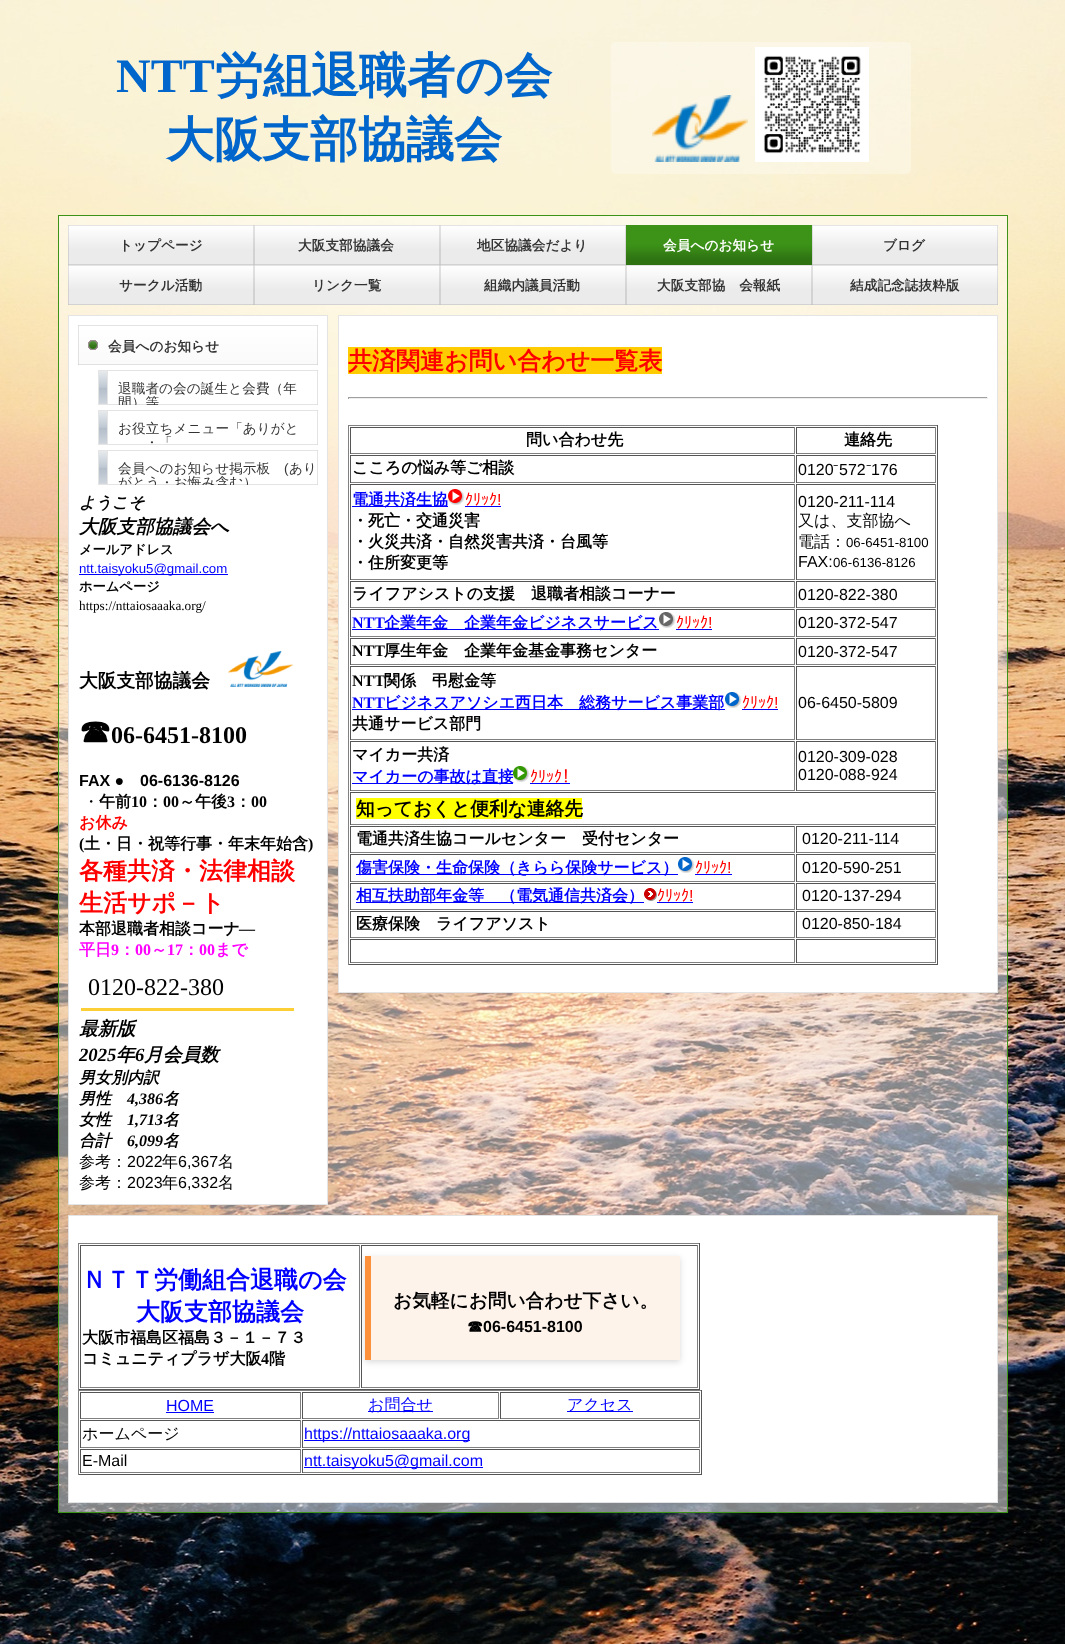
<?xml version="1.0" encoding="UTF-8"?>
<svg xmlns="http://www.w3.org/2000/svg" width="1065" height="1644">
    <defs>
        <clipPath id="clip1"><rect x="98" y="370" width="220" height="35"/></clipPath>
        <clipPath id="clip2"><rect x="98" y="450" width="220" height="35"/></clipPath>
        <filter id="blur1" x="-50%" y="-200%" width="200%" height="500%"><feGaussianBlur stdDeviation="3"/></filter>
    </defs>
    <rect width="100%" height="100%" fill="#FFFFFF"/>
    <image x="0" y="0" width="1065" height="1644" href="img_01.png"/>
    <text x="116" y="92" font-family="Liberation Serif" font-size="48" font-weight="700" fill="#0066CC">NTT</text>
    <text x="215" y="92" font-family="WenQuanYi Zen Hei" font-size="48" font-weight="700" fill="#0066CC">労組退職者の会</text>
    <text x="166" y="156" font-family="WenQuanYi Zen Hei" font-size="48" font-weight="700" fill="#0066CC">大阪支部協議会</text>
    <rect x="611" y="42" width="300" height="132" rx="5" fill="#FFFFFF" fill-opacity="0.3"/>
    <image x="652" y="95" width="96" height="67" href="img_02.png"/>
    <image x="755" y="47" width="114" height="115" href="img_03.png"/>
    <rect x="58.5" y="215.5" width="949" height="1297" fill="#FFFFFF" fill-opacity="0.5" stroke="#3C9318"/>
    <image x="68" y="225" width="930" height="80" href="img_04.png"/>
    <text x="119" y="250" font-family="WenQuanYi Zen Hei" font-size="13.6" font-weight="700" letter-spacing="0.1" fill="#333333">トップページ</text>
    <text x="298" y="250" font-family="WenQuanYi Zen Hei" font-size="13.6" font-weight="700" letter-spacing="0.1" fill="#333333">大阪支部協議会</text>
    <text x="477" y="250" font-family="WenQuanYi Zen Hei" font-size="13.6" font-weight="700" letter-spacing="0.1" fill="#333333">地区協議会だより</text>
    <image x="626" y="225" width="186" height="40" href="img_05.png"/>
    <text x="663" y="250" font-family="WenQuanYi Zen Hei" font-size="13.6" font-weight="700" letter-spacing="0.1" fill="#FFFFFF">会員へのお知らせ</text>
    <text x="883" y="250" font-family="WenQuanYi Zen Hei" font-size="13.6" font-weight="700" letter-spacing="0.1" fill="#333333">ブログ</text>
    <text x="119" y="290" font-family="WenQuanYi Zen Hei" font-size="13.6" font-weight="700" letter-spacing="0.1" fill="#333333">サークル活動</text>
    <text x="312" y="290" font-family="WenQuanYi Zen Hei" font-size="13.6" font-weight="700" letter-spacing="0.1" fill="#333333">リンク一覧</text>
    <text x="484" y="290" font-family="WenQuanYi Zen Hei" font-size="13.6" font-weight="700" letter-spacing="0.1" fill="#333333">組織内議員活動</text>
    <text x="657" y="290" font-family="WenQuanYi Zen Hei" font-size="13.6" font-weight="700" letter-spacing="0.1" fill="#333333">大阪支部協　会報紙</text>
    <text x="850" y="290" font-family="WenQuanYi Zen Hei" font-size="13.6" font-weight="700" letter-spacing="0.1" fill="#333333">結成記念誌抜粋版</text>
    <rect x="68.5" y="315.5" width="259" height="889" fill="#FFFFFF" stroke="#E4E4E4"/>
    <image x="78" y="325" width="240" height="40" href="img_06.png"/>
    <text x="108" y="351" font-family="WenQuanYi Zen Hei" font-size="13.6" font-weight="700" letter-spacing="0.1" fill="#333333">会員へのお知らせ</text>
    <image x="98" y="370" width="220" height="35" href="img_07.png"/>
    <text x="118" y="393" font-family="WenQuanYi Zen Hei" font-size="13.6" font-weight="500" letter-spacing="0.1" fill="#333333">退職者の会の誕生と会費（年</text>
    <g clip-path="url(#clip1)">
        <text x="118" y="407" font-family="WenQuanYi Zen Hei" font-size="13.6" font-weight="500" letter-spacing="0.1" fill="#333333">間）等</text>
    </g>
    <image x="98" y="410" width="220" height="35" href="img_07.png"/>
    <text x="118" y="433" font-family="WenQuanYi Zen Hei" font-size="13.6" font-weight="500" letter-spacing="0.1" fill="#333333">お役立ちメニュー「ありがと</text>
    <text x="145" y="447" font-family="WenQuanYi Zen Hei" font-size="13.6" font-weight="500" letter-spacing="0.1" fill="#333333">・「</text>
    <image x="98" y="450" width="220" height="35" href="img_07.png"/>
    <text x="118" y="473" font-family="WenQuanYi Zen Hei" font-size="13.6" font-weight="500" letter-spacing="0.1" fill="#333333">会員へのお知らせ掲示板</text>
    <text x="284" y="473" font-family="Liberation Sans" font-size="13.6" letter-spacing="0.1" fill="#333333">(</text>
    <text x="289" y="473" font-family="WenQuanYi Zen Hei" font-size="13.6" font-weight="500" letter-spacing="0.1" fill="#333333">あり</text>
    <g clip-path="url(#clip2)">
        <text x="118" y="487" font-family="WenQuanYi Zen Hei" font-size="13.6" font-weight="500" letter-spacing="0.1" fill="#333333">がとう・お悔み含む）</text>
    </g>
    <text x="79" y="508" font-family="WenQuanYi Zen Hei" font-size="16" font-weight="700" font-style="italic" fill="#000000">ようこそ</text>
    <text x="79" y="533" font-family="WenQuanYi Zen Hei" font-size="18.7" font-weight="700" font-style="italic" fill="#000000">大阪支部協議会へ</text>
    <text x="79" y="554" font-family="WenQuanYi Zen Hei" font-size="13.25" font-weight="700" fill="#000000">メールアドレス</text>
    <rect x="79" y="574" width="149" height="1" fill="#0000FF"/>
    <text x="79" y="573" font-family="Liberation Sans" font-size="13.25" fill="#0000FF">ntt.taisyoku5@gmail.com</text>
    <text x="79" y="591" font-family="WenQuanYi Zen Hei" font-size="13.25" font-weight="700" fill="#000000">ホームページ</text>
    <text x="79" y="610" font-family="Liberation Serif" font-size="13.25" fill="#000000">https://nttaiosaaaka.org/</text>
    <text x="79" y="687" font-family="WenQuanYi Zen Hei" font-size="18.7" font-weight="700" fill="#000000">大阪支部協議会</text>
    <image x="228" y="651" width="65" height="36" href="img_08.png"/>
    <text x="79" y="743" font-family="WenQuanYi Zen Hei" font-size="32" font-weight="700" fill="#000000">☎</text>
    <text x="111" y="743" font-family="Liberation Serif" font-size="24" font-weight="700" fill="#000000">06-6451-8100</text>
    <text x="79" y="786" font-family="Liberation Sans" font-size="16" font-weight="700" fill="#000000">FAX ●</text>
    <text x="140" y="786" font-family="Liberation Sans" font-size="16" font-weight="700" fill="#000000">06-6136-8126</text>
    <text x="83" y="807" font-family="WenQuanYi Zen Hei" font-size="16" font-weight="500" fill="#000000">・</text>
    <text x="99" y="807" font-family="WenQuanYi Zen Hei" font-size="16" font-weight="700" fill="#000000">午前</text>
    <text x="131" y="807" font-family="Liberation Serif" font-size="16" font-weight="700" fill="#000000">10</text>
    <text x="147" y="807" font-family="WenQuanYi Zen Hei" font-size="16" font-weight="700" fill="#000000">：</text>
    <text x="163" y="807" font-family="Liberation Serif" font-size="16" font-weight="700" fill="#000000">00</text>
    <text x="179" y="807" font-family="WenQuanYi Zen Hei" font-size="16" font-weight="700" fill="#000000">～午後</text>
    <text x="227" y="807" font-family="Liberation Serif" font-size="16" font-weight="700" fill="#000000">3</text>
    <text x="235" y="807" font-family="WenQuanYi Zen Hei" font-size="16" font-weight="700" fill="#000000">：</text>
    <text x="251" y="807" font-family="Liberation Serif" font-size="16" font-weight="700" fill="#000000">00</text>
    <text x="79" y="828" font-family="WenQuanYi Zen Hei" font-size="16" font-weight="700" fill="#FF0000">お休み</text>
    <text x="79" y="849" font-family="Liberation Serif" font-size="16" font-weight="700" fill="#000000">(</text>
    <text x="84" y="849" font-family="WenQuanYi Zen Hei" font-size="16" font-weight="700" fill="#000000">土・日・祝等行事・年末年始含</text>
    <text x="308" y="849" font-family="Liberation Serif" font-size="16" font-weight="700" fill="#000000">)</text>
    <text font-family="WenQuanYi Zen Hei" font-size="24" font-weight="700" fill="#FF0000">
        <tspan x="79" y="879">各種共済・法律相談</tspan>
        <tspan x="79" y="911">生活サポ－ト</tspan>
    </text>
    <text x="79" y="934" font-family="WenQuanYi Zen Hei" font-size="16" font-weight="700" fill="#000000">本部退職者相談コーナ</text>
    <text x="239" y="934" font-family="Liberation Serif" font-size="16" font-weight="700" fill="#000000">―</text>
    <text x="79" y="955" font-family="WenQuanYi Zen Hei" font-size="16" font-weight="700" fill="#FF00FF">平日</text>
    <text x="111" y="955" font-family="Liberation Serif" font-size="16" font-weight="700" fill="#FF00FF">9</text>
    <text x="119" y="955" font-family="WenQuanYi Zen Hei" font-size="16" font-weight="700" fill="#FF00FF">：</text>
    <text x="135" y="955" font-family="Liberation Serif" font-size="16" font-weight="700" fill="#FF00FF">00</text>
    <text x="151" y="955" font-family="WenQuanYi Zen Hei" font-size="16" font-weight="700" fill="#FF00FF">～</text>
    <text x="167" y="955" font-family="Liberation Serif" font-size="16" font-weight="700" fill="#FF00FF">17</text>
    <text x="183" y="955" font-family="WenQuanYi Zen Hei" font-size="16" font-weight="700" fill="#FF00FF">：</text>
    <text x="199" y="955" font-family="Liberation Serif" font-size="16" font-weight="700" fill="#FF00FF">00</text>
    <text x="215" y="955" font-family="WenQuanYi Zen Hei" font-size="16" font-weight="700" fill="#FF00FF">まで</text>
    <rect x="81" y="1008" width="213" height="3" fill="#FDCF36"/>
    <text x="88" y="995" font-family="Liberation Serif" font-size="24" fill="#000000">0120-822-380</text>
    <text x="79" y="1035" font-family="WenQuanYi Zen Hei" font-size="18.7" font-weight="700" font-style="italic" fill="#000000">最新版</text>
    <text x="79" y="1061" font-family="Liberation Serif" font-size="18.7" font-weight="700" font-style="italic" fill="#000000">2025</text>
    <text x="116" y="1061" font-family="WenQuanYi Zen Hei" font-size="18.7" font-weight="700" font-style="italic" fill="#000000">年</text>
    <text x="135" y="1061" font-family="Liberation Serif" font-size="18.7" font-weight="700" font-style="italic" fill="#000000">6</text>
    <text x="144" y="1061" font-family="WenQuanYi Zen Hei" font-size="18.7" font-weight="700" font-style="italic" fill="#000000">月会員数</text>
    <text font-family="WenQuanYi Zen Hei" font-size="16" font-weight="700" font-style="italic" fill="#000000">
        <tspan x="79" y="1083">男女別内訳</tspan>
        <tspan x="79" y="1104">男性</tspan>
    </text>
    <text x="127" y="1104" font-family="Liberation Serif" font-size="16" font-weight="700" font-style="italic" fill="#000000">4,386</text>
    <text x="163" y="1104" font-family="WenQuanYi Zen Hei" font-size="16" font-weight="700" font-style="italic" fill="#000000">名</text>
    <text x="79" y="1125" font-family="WenQuanYi Zen Hei" font-size="16" font-weight="700" font-style="italic" fill="#000000">女性</text>
    <text x="127" y="1125" font-family="Liberation Serif" font-size="16" font-weight="700" font-style="italic" fill="#000000">1,713</text>
    <text x="163" y="1125" font-family="WenQuanYi Zen Hei" font-size="16" font-weight="700" font-style="italic" fill="#000000">名</text>
    <text x="79" y="1146" font-family="WenQuanYi Zen Hei" font-size="16" font-weight="700" font-style="italic" fill="#000000">合計</text>
    <text x="127" y="1146" font-family="Liberation Serif" font-size="16" font-weight="700" font-style="italic" fill="#000000">6,099</text>
    <text x="163" y="1146" font-family="WenQuanYi Zen Hei" font-size="16" font-weight="700" font-style="italic" fill="#000000">名</text>
    <text x="79" y="1167" font-family="WenQuanYi Zen Hei" font-size="16" font-weight="500" fill="#000000">参考：</text>
    <text x="127" y="1167" font-family="Liberation Sans" font-size="16" fill="#000000">2022</text>
    <text x="162" y="1167" font-family="WenQuanYi Zen Hei" font-size="16" font-weight="500" fill="#000000">年</text>
    <text x="178" y="1167" font-family="Liberation Sans" font-size="16" fill="#000000">6,367</text>
    <text x="218" y="1167" font-family="WenQuanYi Zen Hei" font-size="16" font-weight="500" fill="#000000">名</text>
    <text x="79" y="1188" font-family="WenQuanYi Zen Hei" font-size="16" font-weight="500" fill="#000000">参考：</text>
    <text x="127" y="1188" font-family="Liberation Sans" font-size="16" fill="#000000">2023</text>
    <text x="162" y="1188" font-family="WenQuanYi Zen Hei" font-size="16" font-weight="500" fill="#000000">年</text>
    <text x="178" y="1188" font-family="Liberation Sans" font-size="16" fill="#000000">6,332</text>
    <text x="218" y="1188" font-family="WenQuanYi Zen Hei" font-size="16" font-weight="500" fill="#000000">名</text>
    <rect x="338.5" y="315.5" width="659" height="677" fill="#FFFFFF" stroke="#E4E4E4"/>
    <rect x="348" y="347" width="314" height="27" fill="#FFCC00"/>
    <text x="348" y="369" font-family="WenQuanYi Zen Hei" font-size="24" font-weight="700" fill="#FF0000">共済関連お問い合わせ一覧表</text>
    <rect x="348" y="397" width="640" height="1" fill="#9F9F9F"/>
    <rect x="987" y="397" width="1" height="2" fill="#EEEEEE"/>
    <rect x="348" y="398" width="640" height="1" fill="#EEEEEE"/>
    <rect x="348" y="397" width="1" height="2" fill="#9F9F9F"/>
    <rect x="348" y="425" width="590" height="1" fill="#808080"/>
    <rect x="937" y="425" width="1" height="540" fill="#555555"/>
    <rect x="348" y="964" width="590" height="1" fill="#555555"/>
    <rect x="348" y="425" width="1" height="540" fill="#808080"/>
    <rect x="350" y="427" width="445" height="1" fill="#555555"/>
    <rect x="794" y="427" width="1" height="27" fill="#808080"/>
    <rect x="350" y="453" width="445" height="1" fill="#808080"/>
    <rect x="350" y="427" width="1" height="27" fill="#555555"/>
    <text x="526" y="445" font-family="WenQuanYi Zen Hei" font-size="16" font-weight="700" fill="#000000">問い合わせ先</text>
    <rect x="796" y="427" width="140" height="1" fill="#555555"/>
    <rect x="935" y="427" width="1" height="27" fill="#808080"/>
    <rect x="796" y="453" width="140" height="1" fill="#808080"/>
    <rect x="796" y="427" width="1" height="27" fill="#555555"/>
    <text x="844" y="445" font-family="WenQuanYi Zen Hei" font-size="16" font-weight="700" fill="#000000">連絡先</text>
    <rect x="350" y="455" width="445" height="1" fill="#555555"/>
    <rect x="794" y="455" width="1" height="28" fill="#808080"/>
    <rect x="350" y="482" width="445" height="1" fill="#808080"/>
    <rect x="350" y="455" width="1" height="28" fill="#555555"/>
    <text x="352" y="473" font-family="WenQuanYi Zen Hei" font-size="16" font-weight="700" fill="#000000">こころの悩み等ご相談</text>
    <rect x="796" y="455" width="140" height="1" fill="#555555"/>
    <rect x="935" y="455" width="1" height="28" fill="#808080"/>
    <rect x="796" y="482" width="140" height="1" fill="#808080"/>
    <rect x="796" y="455" width="1" height="28" fill="#555555"/>
    <text x="798" y="475" font-family="Liberation Sans" font-size="16" fill="#000000">0120</text>
    <text x="833" y="475" font-family="Noto Sans" font-size="16" fill="#000000">⁻</text>
    <text x="839" y="475" font-family="Liberation Sans" font-size="16" fill="#000000">572</text>
    <text x="866" y="475" font-family="Noto Sans" font-size="16" fill="#000000">⁻</text>
    <text x="871" y="475" font-family="Liberation Sans" font-size="16" fill="#000000">176</text>
    <rect x="350" y="484" width="445" height="1" fill="#555555"/>
    <rect x="794" y="484" width="1" height="96" fill="#808080"/>
    <rect x="350" y="579" width="445" height="1" fill="#808080"/>
    <rect x="350" y="484" width="1" height="96" fill="#555555"/>
    <rect x="352" y="506" width="96" height="1" fill="#0000FF"/>
    <text x="352" y="505" font-family="WenQuanYi Zen Hei" font-size="16" font-weight="700" fill="#0000FF">電通共済生協</text>
    <image x="448" y="489" width="17" height="16" href="img_09.png"/>
    <text x="465" y="505" font-family="IPAPGothic" font-size="16" fill="#FF0000">ｸﾘｯｸ</text>
    <text x="497" y="505" font-family="Liberation Sans" font-size="16" fill="#FF0000">!</text>
    <rect x="465" y="506" width="36" height="1" fill="#0000FF"/>
    <text font-family="WenQuanYi Zen Hei" font-size="16" font-weight="700" fill="#000000">
        <tspan x="352" y="526">・死亡・交通災害</tspan>
        <tspan x="352" y="547">・火災共済・自然災害共済・台風等</tspan>
        <tspan x="352" y="568">・住所変更等</tspan>
    </text>
    <rect x="796" y="484" width="140" height="1" fill="#555555"/>
    <rect x="935" y="484" width="1" height="96" fill="#808080"/>
    <rect x="796" y="579" width="140" height="1" fill="#808080"/>
    <rect x="796" y="484" width="1" height="96" fill="#555555"/>
    <text x="798" y="507" font-family="Liberation Sans" font-size="16" fill="#000000">0120-211-114</text>
    <text font-family="WenQuanYi Zen Hei" font-size="16" font-weight="500" fill="#000000">
        <tspan x="798" y="526">又は、支部協へ</tspan>
        <tspan x="798" y="547">電話：</tspan>
    </text>
    <text x="846" y="547" font-family="Liberation Sans" font-size="13.25" fill="#000000">06-6451-8100</text>
    <text x="798" y="567" font-family="Liberation Sans" font-size="16" fill="#000000">FAX:</text>
    <text x="833" y="567" font-family="Liberation Sans" font-size="13.25" fill="#000000">06-6136-8126</text>
    <rect x="350" y="581" width="445" height="1" fill="#555555"/>
    <rect x="794" y="581" width="1" height="27" fill="#808080"/>
    <rect x="350" y="607" width="445" height="1" fill="#808080"/>
    <rect x="350" y="581" width="1" height="27" fill="#555555"/>
    <text x="352" y="599" font-family="WenQuanYi Zen Hei" font-size="16" font-weight="700" fill="#000000">ライフアシストの支援　退職者相談コーナー</text>
    <rect x="796" y="581" width="140" height="1" fill="#555555"/>
    <rect x="935" y="581" width="1" height="27" fill="#808080"/>
    <rect x="796" y="607" width="140" height="1" fill="#808080"/>
    <rect x="796" y="581" width="1" height="27" fill="#555555"/>
    <text x="798" y="600" font-family="Liberation Sans" font-size="16" fill="#000000">0120-822-380</text>
    <rect x="350" y="609" width="445" height="1" fill="#555555"/>
    <rect x="794" y="609" width="1" height="28" fill="#808080"/>
    <rect x="350" y="636" width="445" height="1" fill="#808080"/>
    <rect x="350" y="609" width="1" height="28" fill="#555555"/>
    <text x="352" y="628" font-family="Liberation Serif" font-size="16" font-weight="700" fill="#0000FF">NTT</text>
    <rect x="352" y="629" width="307" height="1" fill="#0000FF"/>
    <text x="384" y="628" font-family="WenQuanYi Zen Hei" font-size="16" font-weight="700" fill="#0000FF">企業年金　企業年金ビジネスサービス</text>
    <image x="659" y="612" width="17" height="16" href="img_10.png"/>
    <text x="676" y="628" font-family="IPAPGothic" font-size="16" fill="#FF0000">ｸﾘｯｸ</text>
    <text x="708" y="628" font-family="Liberation Sans" font-size="16" fill="#FF0000">!</text>
    <rect x="676" y="629" width="36" height="1" fill="#0000FF"/>
    <rect x="796" y="609" width="140" height="1" fill="#555555"/>
    <rect x="935" y="609" width="1" height="28" fill="#808080"/>
    <rect x="796" y="636" width="140" height="1" fill="#808080"/>
    <rect x="796" y="609" width="1" height="28" fill="#555555"/>
    <text x="798" y="628" font-family="Liberation Sans" font-size="16" fill="#000000">0120-372-547</text>
    <rect x="350" y="638" width="445" height="1" fill="#555555"/>
    <rect x="794" y="638" width="1" height="27" fill="#808080"/>
    <rect x="350" y="664" width="445" height="1" fill="#808080"/>
    <rect x="350" y="638" width="1" height="27" fill="#555555"/>
    <text x="352" y="656" font-family="Liberation Serif" font-size="16" font-weight="700" fill="#000000">NTT</text>
    <text x="384" y="656" font-family="WenQuanYi Zen Hei" font-size="16" font-weight="700" fill="#000000">厚生年金　企業年金基金事務センター</text>
    <rect x="796" y="638" width="140" height="1" fill="#555555"/>
    <rect x="935" y="638" width="1" height="27" fill="#808080"/>
    <rect x="796" y="664" width="140" height="1" fill="#808080"/>
    <rect x="796" y="638" width="1" height="27" fill="#555555"/>
    <text x="798" y="657" font-family="Liberation Sans" font-size="16" fill="#000000">0120-372-547</text>
    <rect x="350" y="666" width="445" height="1" fill="#555555"/>
    <rect x="794" y="666" width="1" height="74" fill="#808080"/>
    <rect x="350" y="739" width="445" height="1" fill="#808080"/>
    <rect x="350" y="666" width="1" height="74" fill="#555555"/>
    <text x="352" y="686" font-family="Liberation Serif" font-size="16" font-weight="700" fill="#000000">NTT</text>
    <text x="384" y="686" font-family="WenQuanYi Zen Hei" font-size="16" font-weight="700" fill="#000000">関係　弔慰金等</text>
    <text x="352" y="708" font-family="Liberation Serif" font-size="16" font-weight="700" fill="#0000FF">NTT</text>
    <rect x="352" y="709" width="373" height="1" fill="#0000FF"/>
    <text x="384" y="708" font-family="WenQuanYi Zen Hei" font-size="16" font-weight="700" fill="#0000FF">ビジネスアソシエ西日本　総務サービス事業部</text>
    <image x="725" y="692" width="17" height="16" href="img_11.png"/>
    <text x="742" y="708" font-family="IPAPGothic" font-size="16" fill="#FF0000">ｸﾘｯｸ</text>
    <text x="774" y="708" font-family="Liberation Sans" font-size="16" fill="#FF0000">!</text>
    <rect x="742" y="709" width="36" height="1" fill="#0000FF"/>
    <text x="352" y="729" font-family="WenQuanYi Zen Hei" font-size="16" font-weight="700" fill="#000000">共通サービス部門</text>
    <rect x="796" y="666" width="140" height="1" fill="#555555"/>
    <rect x="935" y="666" width="1" height="74" fill="#808080"/>
    <rect x="796" y="739" width="140" height="1" fill="#808080"/>
    <rect x="796" y="666" width="1" height="74" fill="#555555"/>
    <text x="798" y="708" font-family="Liberation Sans" font-size="16" fill="#000000">06-6450-5809</text>
    <rect x="350" y="741" width="445" height="1" fill="#555555"/>
    <rect x="794" y="741" width="1" height="50" fill="#808080"/>
    <rect x="350" y="790" width="445" height="1" fill="#808080"/>
    <rect x="350" y="741" width="1" height="50" fill="#555555"/>
    <text x="352" y="760" font-family="WenQuanYi Zen Hei" font-size="16" font-weight="700" fill="#000000">マイカー共済</text>
    <rect x="352" y="783" width="161" height="1" fill="#0000FF"/>
    <text x="352" y="782" font-family="WenQuanYi Zen Hei" font-size="16" font-weight="700" fill="#0000FF">マイカーの事故は直接</text>
    <image x="513" y="766" width="17" height="16" href="img_12.png"/>
    <text x="530" y="782" font-family="IPAPGothic" font-size="16" fill="#FF0000">ｸﾘｯｸ！</text>
    <rect x="530" y="783" width="40" height="1" fill="#0000FF"/>
    <rect x="796" y="741" width="140" height="1" fill="#555555"/>
    <rect x="935" y="741" width="1" height="50" fill="#808080"/>
    <rect x="796" y="790" width="140" height="1" fill="#808080"/>
    <rect x="796" y="741" width="1" height="50" fill="#555555"/>
    <text font-family="Liberation Sans" font-size="16" fill="#000000">
        <tspan x="798" y="762">0120-309-028</tspan>
        <tspan x="798" y="780">0120-088-924</tspan>
    </text>
    <rect x="350" y="792" width="586" height="1" fill="#555555"/>
    <rect x="935" y="792" width="1" height="33" fill="#808080"/>
    <rect x="350" y="824" width="586" height="1" fill="#808080"/>
    <rect x="350" y="792" width="1" height="33" fill="#555555"/>
    <rect x="356" y="798" width="226" height="21" fill="#FFFF00"/>
    <text x="356" y="815" font-family="WenQuanYi Zen Hei" font-size="18.7" font-weight="700" fill="#000000">知っておくと便利な連絡先</text>
    <rect x="350" y="826" width="445" height="1" fill="#555555"/>
    <rect x="794" y="826" width="1" height="27" fill="#808080"/>
    <rect x="350" y="852" width="445" height="1" fill="#808080"/>
    <rect x="350" y="826" width="1" height="27" fill="#555555"/>
    <text x="356" y="844" font-family="WenQuanYi Zen Hei" font-size="16" font-weight="700" fill="#000000">電通共済生協コールセンター　受付センター</text>
    <rect x="796" y="826" width="140" height="1" fill="#555555"/>
    <rect x="935" y="826" width="1" height="27" fill="#808080"/>
    <rect x="796" y="852" width="140" height="1" fill="#808080"/>
    <rect x="796" y="826" width="1" height="27" fill="#555555"/>
    <text x="802" y="844" font-family="Liberation Sans" font-size="16" fill="#000000">0120-211-114</text>
    <rect x="350" y="854" width="445" height="1" fill="#555555"/>
    <rect x="794" y="854" width="1" height="28" fill="#808080"/>
    <rect x="350" y="881" width="445" height="1" fill="#808080"/>
    <rect x="350" y="854" width="1" height="28" fill="#555555"/>
    <rect x="356" y="874" width="322" height="1" fill="#0000FF"/>
    <text x="356" y="873" font-family="WenQuanYi Zen Hei" font-size="16" font-weight="700" fill="#0000FF">傷害保険・生命保険（きらら保険サービス）</text>
    <image x="678" y="857" width="17" height="16" href="img_11.png"/>
    <text x="695" y="873" font-family="IPAPGothic" font-size="16" fill="#FF0000">ｸﾘｯｸ</text>
    <text x="727" y="873" font-family="Liberation Sans" font-size="16" fill="#FF0000">!</text>
    <rect x="695" y="874" width="37" height="1" fill="#0000FF"/>
    <rect x="796" y="854" width="140" height="1" fill="#555555"/>
    <rect x="935" y="854" width="1" height="28" fill="#808080"/>
    <rect x="796" y="881" width="140" height="1" fill="#808080"/>
    <rect x="796" y="854" width="1" height="28" fill="#555555"/>
    <text x="802" y="873" font-family="Liberation Sans" font-size="16" fill="#000000">0120-590-251</text>
    <rect x="350" y="883" width="445" height="1" fill="#555555"/>
    <rect x="794" y="883" width="1" height="27" fill="#808080"/>
    <rect x="350" y="909" width="445" height="1" fill="#808080"/>
    <rect x="350" y="883" width="1" height="27" fill="#555555"/>
    <rect x="356" y="902" width="288" height="1" fill="#0000FF"/>
    <text x="356" y="901" font-family="WenQuanYi Zen Hei" font-size="16" font-weight="700" fill="#0000FF">相互扶助部年金等　（電気通信共済会）</text>
    <image x="644" y="888" width="13" height="13" href="img_13.png"/>
    <text x="657" y="901" font-family="IPAPGothic" font-size="16" fill="#FF0000">ｸﾘｯｸ</text>
    <text x="689" y="901" font-family="Liberation Sans" font-size="16" fill="#FF0000">!</text>
    <rect x="657" y="902" width="36" height="1" fill="#0000FF"/>
    <rect x="796" y="883" width="140" height="1" fill="#555555"/>
    <rect x="935" y="883" width="1" height="27" fill="#808080"/>
    <rect x="796" y="909" width="140" height="1" fill="#808080"/>
    <rect x="796" y="883" width="1" height="27" fill="#555555"/>
    <text x="802" y="901" font-family="Liberation Sans" font-size="16" fill="#000000">0120-137-294</text>
    <rect x="350" y="911" width="445" height="1" fill="#555555"/>
    <rect x="794" y="911" width="1" height="27" fill="#808080"/>
    <rect x="350" y="937" width="445" height="1" fill="#808080"/>
    <rect x="350" y="911" width="1" height="27" fill="#555555"/>
    <text x="356" y="929" font-family="WenQuanYi Zen Hei" font-size="16" font-weight="700" fill="#000000">医療保険　ライフアソスト</text>
    <rect x="796" y="911" width="140" height="1" fill="#555555"/>
    <rect x="935" y="911" width="1" height="27" fill="#808080"/>
    <rect x="796" y="937" width="140" height="1" fill="#808080"/>
    <rect x="796" y="911" width="1" height="27" fill="#555555"/>
    <text x="802" y="929" font-family="Liberation Sans" font-size="16" fill="#000000">0120-850-184</text>
    <rect x="350" y="939" width="445" height="1" fill="#555555"/>
    <rect x="794" y="939" width="1" height="24" fill="#808080"/>
    <rect x="350" y="962" width="445" height="1" fill="#808080"/>
    <rect x="350" y="939" width="1" height="24" fill="#555555"/>
    <rect x="796" y="939" width="140" height="1" fill="#555555"/>
    <rect x="935" y="939" width="1" height="24" fill="#808080"/>
    <rect x="796" y="962" width="140" height="1" fill="#808080"/>
    <rect x="796" y="939" width="1" height="24" fill="#555555"/>
    <rect x="68.5" y="1215.5" width="929" height="287" fill="#FFFFFF" stroke="#E4E4E4"/>
    <rect x="78" y="1243" width="622" height="1" fill="#808080"/>
    <rect x="699" y="1243" width="1" height="147" fill="#555555"/>
    <rect x="78" y="1389" width="622" height="1" fill="#555555"/>
    <rect x="78" y="1243" width="1" height="147" fill="#808080"/>
    <rect x="80" y="1245" width="280" height="1" fill="#555555"/>
    <rect x="359" y="1245" width="1" height="143" fill="#808080"/>
    <rect x="80" y="1387" width="280" height="1" fill="#808080"/>
    <rect x="80" y="1245" width="1" height="143" fill="#555555"/>
    <text x="82" y="1288" font-family="WenQuanYi Zen Hei" font-size="24" font-weight="700" fill="#0000FF">ＮＴＴ労働組合退職の会</text>
    <text x="136" y="1320" font-family="WenQuanYi Zen Hei" font-size="24" font-weight="700" fill="#0000FF">大阪支部協議会</text>
    <text font-family="WenQuanYi Zen Hei" font-size="16" font-weight="700" fill="#000000">
        <tspan x="82" y="1343">大阪市福島区福島３－１－７３</tspan>
        <tspan x="82" y="1364">コミュニティプラザ大阪</tspan>
    </text>
    <text x="261" y="1364" font-family="Liberation Serif" font-size="16" font-weight="700" fill="#000000">4</text>
    <text x="269" y="1364" font-family="WenQuanYi Zen Hei" font-size="16" font-weight="700" fill="#000000">階</text>
    <rect x="361" y="1245" width="337" height="1" fill="#555555"/>
    <rect x="697" y="1245" width="1" height="143" fill="#808080"/>
    <rect x="361" y="1387" width="337" height="1" fill="#808080"/>
    <rect x="361" y="1245" width="1" height="143" fill="#555555"/>
    <rect x="365" y="1258" width="315" height="104" fill="#000000" fill-opacity="0.15" filter="url(#blur1)"/>
    <rect x="371" y="1256" width="309" height="104" fill="#FEF3EB"/>
    <rect x="365" y="1256" width="6" height="104" fill="#FD903B"/>
    <text x="393" y="1307" font-family="WenQuanYi Zen Hei" font-size="18.7" font-weight="700" fill="#000000">お気軽にお問い合わせ下さい。</text>
    <text x="467" y="1332" font-family="WenQuanYi Zen Hei" font-size="16" font-weight="700" fill="#000000">☎</text>
    <text x="483" y="1332" font-family="Liberation Sans" font-size="16" font-weight="700" fill="#000000">06-6451-8100</text>
    <rect x="78" y="1390" width="624" height="1" fill="#808080"/>
    <rect x="701" y="1390" width="1" height="85" fill="#555555"/>
    <rect x="78" y="1474" width="624" height="1" fill="#555555"/>
    <rect x="78" y="1390" width="1" height="85" fill="#808080"/>
    <rect x="80" y="1392" width="221" height="1" fill="#555555"/>
    <rect x="300" y="1392" width="1" height="27" fill="#808080"/>
    <rect x="80" y="1418" width="221" height="1" fill="#808080"/>
    <rect x="80" y="1392" width="1" height="27" fill="#555555"/>
    <text x="166" y="1411" font-family="Liberation Sans" font-size="16" fill="#0000FF">HOME</text>
    <rect x="166" y="1412" width="48" height="1" fill="#0000FF"/>
    <rect x="302" y="1392" width="197" height="1" fill="#555555"/>
    <rect x="498" y="1392" width="1" height="27" fill="#808080"/>
    <rect x="302" y="1418" width="197" height="1" fill="#808080"/>
    <rect x="302" y="1392" width="1" height="27" fill="#555555"/>
    <rect x="368" y="1411" width="65" height="1" fill="#0000FF"/>
    <text x="368" y="1410" font-family="WenQuanYi Zen Hei" font-size="16" font-weight="500" fill="#0000FF">お問合せ</text>
    <rect x="500" y="1392" width="200" height="1" fill="#555555"/>
    <rect x="699" y="1392" width="1" height="27" fill="#808080"/>
    <rect x="500" y="1418" width="200" height="1" fill="#808080"/>
    <rect x="500" y="1392" width="1" height="27" fill="#555555"/>
    <rect x="567" y="1411" width="66" height="1" fill="#0000FF"/>
    <text x="567" y="1410" font-family="WenQuanYi Zen Hei" font-size="16" font-weight="500" fill="#0000FF">アクセス</text>
    <rect x="80" y="1420" width="221" height="1" fill="#555555"/>
    <rect x="300" y="1420" width="1" height="28" fill="#808080"/>
    <rect x="80" y="1447" width="221" height="1" fill="#808080"/>
    <rect x="80" y="1420" width="1" height="28" fill="#555555"/>
    <text x="82" y="1439" font-family="WenQuanYi Zen Hei" font-size="16" font-weight="500" fill="#000000">ホームページ</text>
    <rect x="302" y="1420" width="398" height="1" fill="#555555"/>
    <rect x="699" y="1420" width="1" height="28" fill="#808080"/>
    <rect x="302" y="1447" width="398" height="1" fill="#808080"/>
    <rect x="302" y="1420" width="1" height="28" fill="#555555"/>
    <rect x="304" y="1440" width="166" height="1" fill="#0000FF"/>
    <text x="304" y="1439" font-family="Liberation Sans" font-size="16" fill="#0000FF">https://nttaiosaaaka.org</text>
    <rect x="80" y="1449" width="221" height="1" fill="#555555"/>
    <rect x="300" y="1449" width="1" height="24" fill="#808080"/>
    <rect x="80" y="1472" width="221" height="1" fill="#808080"/>
    <rect x="80" y="1449" width="1" height="24" fill="#555555"/>
    <text x="82" y="1466" font-family="Liberation Sans" font-size="16" fill="#000000">E-Mail</text>
    <rect x="302" y="1449" width="398" height="1" fill="#555555"/>
    <rect x="699" y="1449" width="1" height="24" fill="#808080"/>
    <rect x="302" y="1472" width="398" height="1" fill="#808080"/>
    <rect x="302" y="1449" width="1" height="24" fill="#555555"/>
    <rect x="304" y="1467" width="179" height="1" fill="#0000FF"/>
    <text x="304" y="1466" font-family="Liberation Sans" font-size="16" fill="#0000FF">ntt.taisyoku5@gmail.com</text>
</svg>
